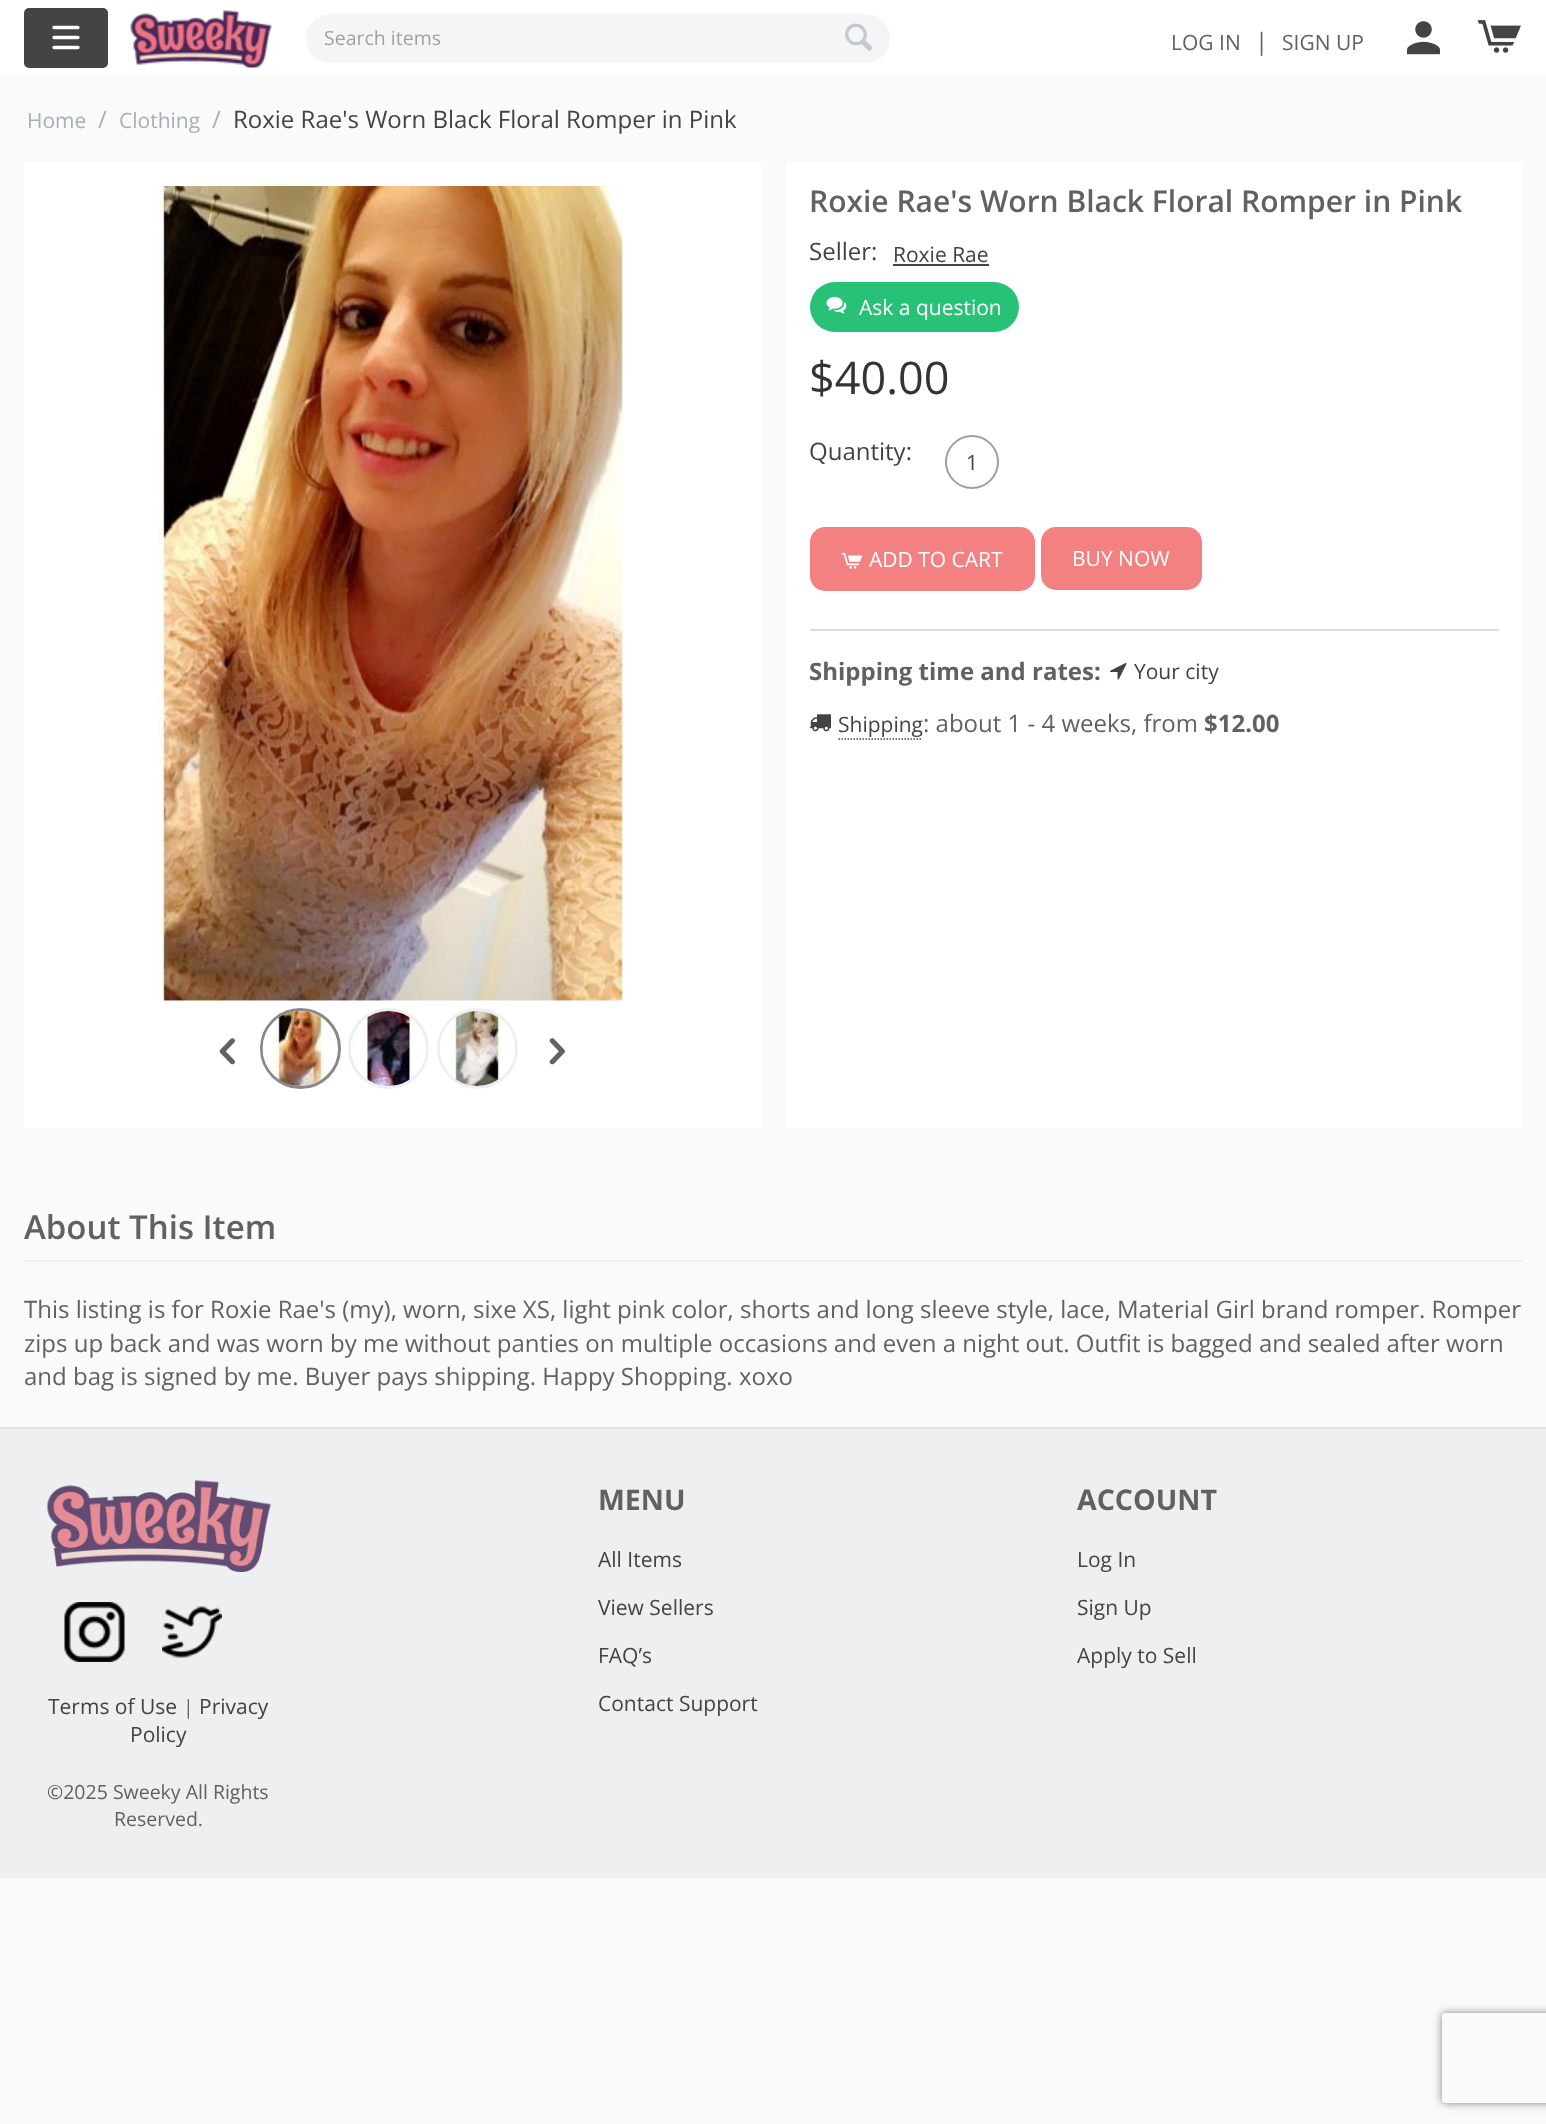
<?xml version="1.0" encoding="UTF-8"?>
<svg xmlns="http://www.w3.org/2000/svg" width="1546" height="2124">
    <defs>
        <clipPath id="clip1"><path d="M 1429 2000 H 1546 V 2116 H 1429 Z M 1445 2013 H 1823 C 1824.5 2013 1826 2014.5 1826 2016 V 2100 C 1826 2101.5 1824.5 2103 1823 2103 H 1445 C 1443.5 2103 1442 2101.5 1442 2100 V 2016 C 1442 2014.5 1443.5 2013 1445 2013 Z" clip-rule="evenodd"/></clipPath>
        <filter id="blur1" x="-50%" y="-200%" width="200%" height="500%"><feGaussianBlur stdDeviation="4"/></filter>
    </defs>
    <rect width="100%" height="100%" fill="#FAFAFA"/>
    <rect x="0" y="0" width="1546" height="75" fill="#FFFFFF"/>
    <rect x="24" y="8" width="84" height="60" rx="5" fill="#444444"/>
    <path d="M 78 27.5 H 54 M 78 37.5 H 54 M 54 47.5 H 78" fill="none" stroke="#FFFFFF" stroke-width="3.3" stroke-linecap="round"/>
    <image x="130" y="10" width="142" height="58" href="img_01.png"/>
    <rect x="306" y="14" width="584" height="49" rx="24.5" fill="#F5F5F5"/>
    <text x="324" y="45" font-family="Open Sans" font-size="19.5" fill="#A1A1A1">Search items</text>
    <image x="845" y="23" width="28" height="28" href="img_02.png"/>
    <text x="1171" y="50" font-family="Open Sans" font-size="21" fill="#616161">LOG IN</text>
    <text x="1255" y="50" font-family="Open Sans" font-size="24" fill="#616161">|</text>
    <text x="1282" y="50" font-family="Open Sans" font-size="21" fill="#616161">SIGN UP</text>
    <image x="1407" y="21" width="33" height="34" href="img_03.png"/>
    <image x="1477" y="20" width="44" height="33" href="img_04.png"/>
    <text x="27" y="128" font-family="Open Sans" font-size="21" fill="#A5AFB9">Home</text>
    <text x="98" y="128" font-family="Open Sans" font-size="24" fill="#A5AFB9">/</text>
    <text x="119" y="128" font-family="Open Sans" font-size="21" fill="#A5AFB9">Clothing</text>
    <text x="212" y="128" font-family="Open Sans" font-size="24" fill="#A5AFB9">/</text>
    <text x="233" y="128" font-family="Open Sans" font-size="24" fill="#434343">Roxie Rae's Worn Black Floral Romper in Pink</text>
    <rect x="24" y="162" width="738" height="966" fill="#FFFFFF"/>
    <image x="158" y="186" width="466" height="815" href="img_05.png"/>
    <circle cx="300.5" cy="1048.5" r="39" fill="none" stroke="#888888" stroke-width="3"/>
    <image x="262" y="1011" width="75" height="75" href="img_06.png"/>
    <circle cx="388.5" cy="1048.5" r="39" fill="none" stroke="#EDEFF1" stroke-width="3"/>
    <image x="351" y="1011" width="71" height="75" href="img_07.png"/>
    <circle cx="477.5" cy="1048.5" r="39" fill="none" stroke="#EDEFF1" stroke-width="3"/>
    <image x="439" y="1011" width="72" height="75" href="img_08.png"/>
    <image x="219" y="1038" width="16" height="27" href="img_09.png"/>
    <image x="549" y="1038" width="16" height="27" href="img_10.png"/>
    <rect x="786" y="162" width="737" height="966" fill="#FFFFFF"/>
    <text x="809" y="212" font-family="Open Sans" font-size="30" font-weight="600" fill="#616161">Roxie Rae's Worn Black Floral Romper in Pink</text>
    <text x="809" y="260" font-family="Open Sans" font-size="24" fill="#434343">Seller:</text>
    <text x="893" y="262" font-family="Open Sans" font-size="21" fill="#434343">Roxie Rae</text>
    <rect x="893" y="264" width="96" height="2" fill="#434343"/>
    <rect x="810" y="282" width="209" height="50" rx="25" fill="#27C278"/>
    <image x="826" y="296" width="21" height="18" href="img_11.png"/>
    <text x="859" y="315" font-family="Open Sans" font-size="21" fill="#FFFFFF">Ask a question</text>
    <text x="809" y="394" font-family="Open Sans" font-size="45" fill="#343434">$40.00</text>
    <text x="809" y="460" font-family="Open Sans" font-size="24" fill="#434343">Quantity:</text>
    <circle cx="972" cy="462" r="26" fill="none" stroke="#9E9E9E" stroke-width="2"/>
    <text x="966" y="470" font-family="Open Sans" font-size="21" fill="#434343">1</text>
    <rect x="810" y="527" width="225" height="64" rx="15" fill="#F38181"/>
    <image x="841" y="552" width="22" height="17" href="img_12.png"/>
    <text x="869" y="567" font-family="Open Sans" font-size="21" fill="#FFFFFF">ADD TO CART</text>
    <rect x="1041" y="527" width="161" height="63" rx="15" fill="#F38181"/>
    <text x="1072" y="566" font-family="Open Sans" font-size="21" fill="#FFFFFF">BUY NOW</text>
    <rect x="810" y="629" width="689" height="2" fill="#D9DDE1"/>
    <text x="809" y="680" font-family="Open Sans" font-size="24" font-weight="700" fill="#616161">Shipping time and rates:</text>
    <image x="1110" y="663" width="17" height="17" href="img_13.png"/>
    <text x="1134" y="679" font-family="Open Sans" font-size="21" fill="#434343">Your city</text>
    <image x="810" y="714" width="21" height="18" href="img_14.png"/>
    <text x="838" y="732" font-family="Open Sans" font-size="21" fill="#434343">Shipping</text>
    <path d="M 838.5 739 H 922.5" fill="none" stroke="#434343" stroke-width="1.5" stroke-dasharray="1.5 1.5"/>
    <text x="923" y="732" font-family="Open Sans" font-size="24" fill="#616161">: about 1 - 4 weeks, from</text>
    <text x="1204" y="732" font-family="Open Sans" font-size="24" font-weight="700" fill="#616161">$12.00</text>
    <rect x="24" y="1260" width="1499" height="2" fill="#EDEFF1"/>
    <text x="24" y="1239" font-family="Open Sans" font-size="33" font-weight="600" fill="#616161">About This Item</text>
    <text font-family="Open Sans" font-size="24" fill="#616161">
        <tspan x="24" y="1318">This listing is for Roxie Rae's (my), worn, sixe XS, light pink color, shorts and long sleeve style, lace, Material Girl brand romper. Romper</tspan>
        <tspan x="24" y="1352">zips up back and was worn by me without panties on multiple occasions and even a night out. Outfit is bagged and sealed after worn</tspan>
        <tspan x="24" y="1385">and bag is signed by me. Buyer pays shipping. Happy Shopping. xoxo</tspan>
    </text>
    <rect x="0" y="1429" width="1546" height="449" fill="#EDEFF1"/>
    <rect x="0" y="1427" width="1546" height="2" fill="#E0E0E0"/>
    <text x="598" y="1510" font-family="Open Sans" font-size="28.5" font-weight="700" fill="#616161">MENU</text>
    <text x="598" y="1567" font-family="Open Sans" font-size="21" fill="#434343">All Items</text>
    <text x="598" y="1615" font-family="Open Sans" font-size="21" fill="#434343">View Sellers</text>
    <text x="598" y="1663" font-family="Open Sans" font-size="21" fill="#434343">FAQ’s</text>
    <text x="598" y="1711" font-family="Open Sans" font-size="21" fill="#434343">Contact Support</text>
    <text x="1077" y="1510" font-family="Open Sans" font-size="28.5" font-weight="700" fill="#616161">ACCOUNT</text>
    <text x="1077" y="1567" font-family="Open Sans" font-size="21" fill="#434343">Log In</text>
    <text x="1077" y="1615" font-family="Open Sans" font-size="21" fill="#434343">Sign Up</text>
    <text x="1077" y="1663" font-family="Open Sans" font-size="21" fill="#434343">Apply to Sell</text>
    <image x="47" y="1480" width="224" height="92" href="img_15.png"/>
    <image x="64" y="1602" width="61" height="60" href="img_16.png"/>
    <image x="162" y="1606" width="60" height="52" href="img_17.png"/>
    <text x="48" y="1714" font-family="Open Sans" font-size="21" fill="#434343">Terms of Use</text>
    <text x="183" y="1714" font-family="Open Sans" font-size="19.5" fill="#616161">|</text>
    <text x="199" y="1714" font-family="Open Sans" font-size="21" fill="#434343">Privacy</text>
    <text x="130" y="1742" font-family="Open Sans" font-size="21" fill="#434343">Policy</text>
    <text x="47" y="1799" font-family="Open Sans" font-size="19.5" fill="#616161">©2025 Sweeky All Rights</text>
    <text x="114" y="1826" font-family="Open Sans" font-size="19.5" fill="#616161">Reserved.</text>
    <g clip-path="url(#clip1)">
        <rect x="1442" y="2013" width="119" height="90" rx="3" fill="#808080" filter="url(#blur1)"/>
    </g>
</svg>
